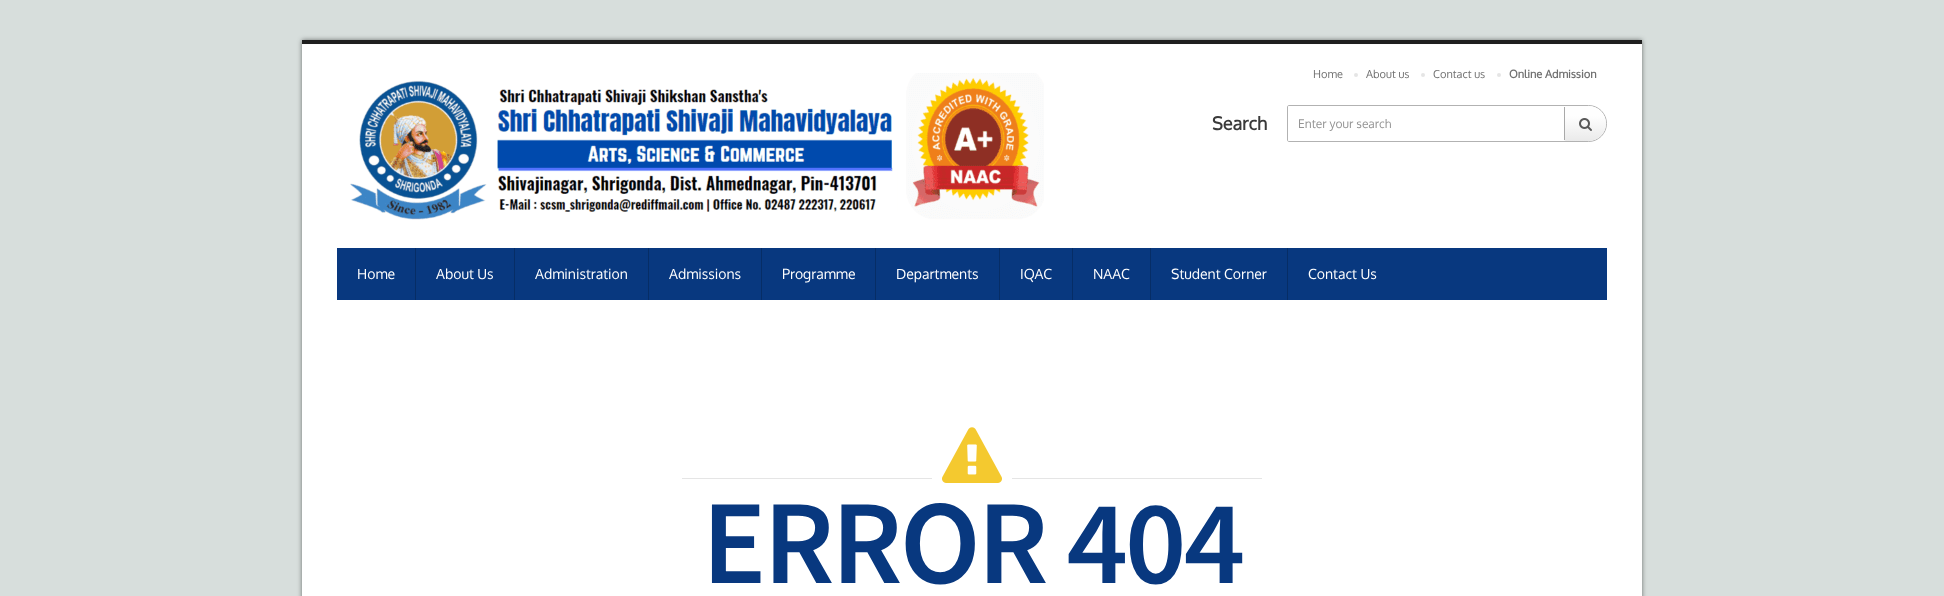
<?xml version="1.0" encoding="UTF-8"?>
<svg xmlns="http://www.w3.org/2000/svg" width="1944" height="596">
    <defs>
        <filter id="blur1" x="-50%" y="-200%" width="200%" height="500%"><feGaussianBlur stdDeviation="2.5"/></filter>
        <linearGradient id="g1" gradientUnits="userSpaceOnUse" x1="1586" y1="106" x2="1586" y2="141"><stop offset="0.29" stop-color="#FEFEFE"/><stop offset="1" stop-color="#EAEAEA"/></linearGradient>
    </defs>
    <rect width="100%" height="100%" fill="#D7DEDC"/>
    <rect x="302" y="40" width="1340" height="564" fill="#000000" fill-opacity="0.5" filter="url(#blur1)"/>
    <rect x="302" y="45" width="1340" height="551" fill="#FFFFFF"/>
    <rect x="302" y="40" width="1340" height="4" fill="#1F1F1F"/>
    <rect x="302" y="44" width="1340" height="1" fill="#FCFCFC"/>
    <image x="350" y="73" width="694" height="147" href="img_01.png"/>
    <text x="1313" y="78" font-family="Oxygen" font-size="11" fill="#717171">Home</text>
    <circle cx="1356" cy="75" r="2" fill="#E5E5E5"/>
    <text x="1366" y="78" font-family="Oxygen" font-size="11" fill="#717171">About us</text>
    <circle cx="1423" cy="75" r="2" fill="#E5E5E5"/>
    <text x="1433" y="78" font-family="Oxygen" font-size="11" fill="#717171">Contact us</text>
    <circle cx="1499" cy="75" r="2" fill="#E5E5E5"/>
    <text x="1509" y="78" font-family="Oxygen" font-size="11" font-weight="700" fill="#717171">Online Admission</text>
    <text x="1212" y="130" font-family="Oxygen" font-size="18" font-weight="700" fill="#3A3A3A">Search</text>
    <path d="M 1289 105.5 H 1588.5 C 1598.5 105.5 1606.5 113.5 1606.5 123.5 C 1606.5 133.5 1598.5 141.5 1588.5 141.5 H 1289 C 1288 141.5 1287.5 141 1287.5 140 V 107 C 1287.5 106 1288 105.5 1289 105.5 Z" fill="none" stroke="#B2B2B2"/>
    <text x="1298" y="128" font-family="Oxygen" font-size="12" fill="#949494">Enter your search</text>
    <path d="M 1566 106 H 1588.5 C 1598 106 1606 114 1606 123.5 C 1606 133 1598 141 1588.5 141 H 1566 C 1565 141 1564 140 1564 139 V 108 C 1564 107 1565 106 1566 106 Z" fill="url(#g1)"/>
    <rect x="1564" y="107" width="1" height="33" fill="#A9A9A9"/>
    <image x="1579" y="118" width="13" height="13" href="img_02.png"/>
    <rect x="337" y="248" width="1270" height="52" fill="#08387F"/>
    <rect x="415" y="248" width="1" height="52" fill="#062D66"/>
    <text x="357" y="279" font-family="Oxygen" font-size="14" fill="#FFFFFF">Home</text>
    <rect x="514" y="248" width="1" height="52" fill="#062D66"/>
    <text x="436" y="279" font-family="Oxygen" font-size="14" fill="#FFFFFF">About Us</text>
    <rect x="648" y="248" width="1" height="52" fill="#062D66"/>
    <text x="535" y="279" font-family="Oxygen" font-size="14" fill="#FFFFFF">Administration</text>
    <rect x="761" y="248" width="1" height="52" fill="#062D66"/>
    <text x="669" y="279" font-family="Oxygen" font-size="14" fill="#FFFFFF">Admissions</text>
    <rect x="875" y="248" width="1" height="52" fill="#062D66"/>
    <text x="782" y="279" font-family="Oxygen" font-size="14" fill="#FFFFFF">Programme</text>
    <rect x="999" y="248" width="1" height="52" fill="#062D66"/>
    <text x="896" y="279" font-family="Oxygen" font-size="14" fill="#FFFFFF">Departments</text>
    <rect x="1072" y="248" width="1" height="52" fill="#062D66"/>
    <text x="1020" y="279" font-family="Oxygen" font-size="14" fill="#FFFFFF">IQAC</text>
    <rect x="1150" y="248" width="1" height="52" fill="#062D66"/>
    <text x="1093" y="279" font-family="Oxygen" font-size="14" fill="#FFFFFF">NAAC</text>
    <rect x="1287" y="248" width="1" height="52" fill="#062D66"/>
    <text x="1171" y="279" font-family="Oxygen" font-size="14" fill="#FFFFFF">Student Corner</text>
    <text x="1308" y="279" font-family="Oxygen" font-size="14" fill="#FFFFFF">Contact Us</text>
    <rect x="682" y="478" width="250" height="1" fill="#E5E5E5"/>
    <image x="942" y="427" width="60" height="56" href="img_03.png"/>
    <rect x="1012" y="478" width="250" height="1" fill="#E5E5E5"/>
    <text x="702" y="583" font-family="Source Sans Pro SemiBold" font-size="120" font-weight="600" letter-spacing="-3" fill="#08387F">ERROR 404</text>
</svg>
